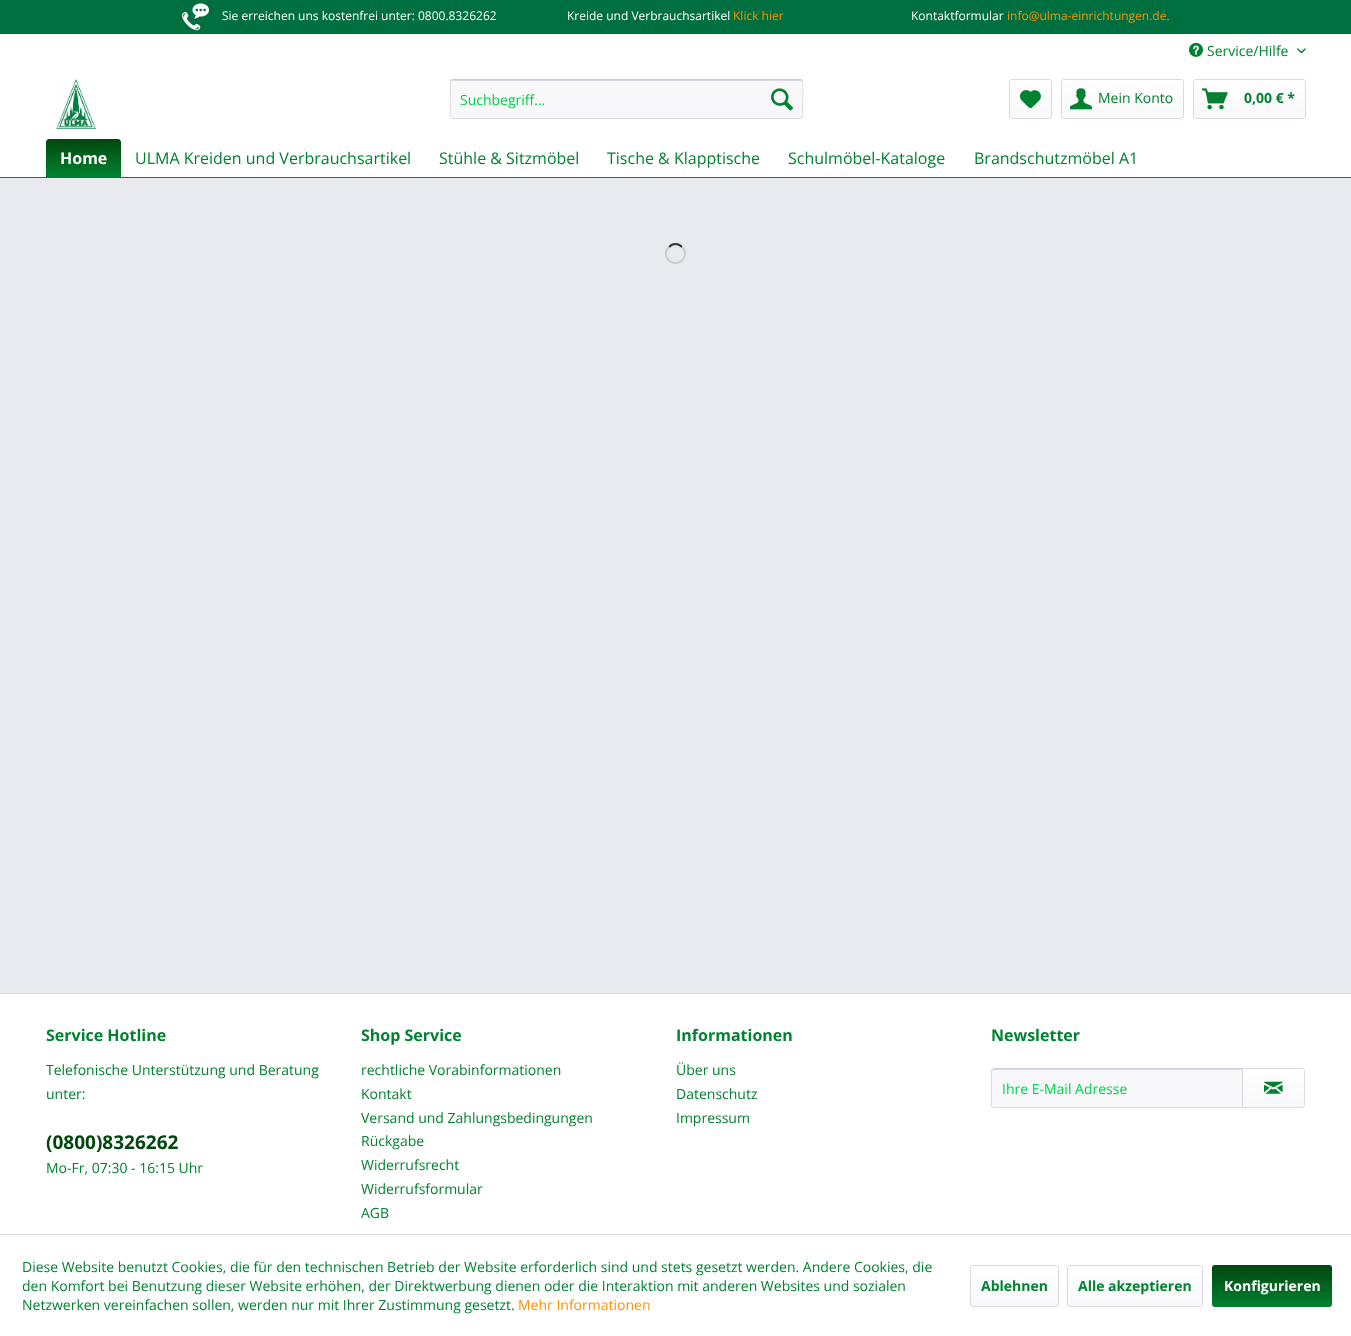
<?xml version="1.0" encoding="UTF-8"?>
<svg xmlns="http://www.w3.org/2000/svg" width="1351" height="1336">
    <defs>
        <linearGradient id="g1" gradientUnits="userSpaceOnUse" x1="1031" y1="80" x2="1031" y2="118"><stop offset="0" stop-color="#FFFFFF"/><stop offset="1" stop-color="#F8F8FA"/></linearGradient>
        <linearGradient id="g2" gradientUnits="userSpaceOnUse" x1="1123" y1="80" x2="1123" y2="118"><stop offset="0" stop-color="#FFFFFF"/><stop offset="1" stop-color="#F8F8FA"/></linearGradient>
        <linearGradient id="g3" gradientUnits="userSpaceOnUse" x1="1250" y1="80" x2="1250" y2="118"><stop offset="0" stop-color="#FFFFFF"/><stop offset="1" stop-color="#F8F8FA"/></linearGradient>
        <linearGradient id="g4" gradientUnits="userSpaceOnUse" x1="84" y1="139" x2="84" y2="177"><stop offset="0" stop-color="#00470E"/><stop offset="1" stop-color="#008230"/></linearGradient>
        <linearGradient id="g5" gradientUnits="userSpaceOnUse" x1="1274" y1="1069" x2="1274" y2="1107"><stop offset="0" stop-color="#FFFFFF"/><stop offset="1" stop-color="#F8F8FA"/></linearGradient>
        <linearGradient id="g6" gradientUnits="userSpaceOnUse" x1="1015" y1="1266" x2="1015" y2="1306"><stop offset="0" stop-color="#FFFFFF"/><stop offset="1" stop-color="#F8F8FA"/></linearGradient>
        <linearGradient id="g7" gradientUnits="userSpaceOnUse" x1="1135" y1="1266" x2="1135" y2="1306"><stop offset="0" stop-color="#FFFFFF"/><stop offset="1" stop-color="#F8F8FA"/></linearGradient>
        <linearGradient id="g8" gradientUnits="userSpaceOnUse" x1="1272" y1="1265" x2="1272" y2="1307"><stop offset="0" stop-color="#00470E"/><stop offset="1" stop-color="#008230"/></linearGradient>
    </defs>
    <rect width="100%" height="100%" fill="#E9E9F0"/>
    <rect x="0" y="0" width="1351" height="34" fill="#006F3F"/>
    <image x="182" y="3" width="27" height="28" href="img_01.png"/>
    <text x="222" y="20" font-family="Open Sans" font-size="12" fill="#FFFFFF">Sie erreichen uns kostenfrei unter: 0800.8326262</text>
    <text x="567" y="20" font-family="Open Sans" font-size="12" fill="#FFFFFF">Kreide und Verbrauchsartikel</text>
    <text x="733" y="20" font-family="Open Sans" font-size="12" fill="#FF9200">Klick hier</text>
    <text x="911" y="20" font-family="Open Sans" font-size="12" fill="#FFFFFF">Kontaktformular</text>
    <text x="1007" y="20" font-family="Open Sans" font-size="12" fill="#FF9200">info@ulma-einrichtungen.de.</text>
    <rect x="0" y="34" width="1351" height="143" fill="#FFFFFF"/>
    <image x="1189" y="42" width="14" height="15" href="img_02.png"/>
    <text x="1207" y="56" font-family="Open Sans" font-size="14" fill="#008230">Service/Hilfe</text>
    <image x="1297" y="48" width="9" height="6" href="img_03.png"/>
    <image x="56" y="79" width="40" height="50" href="img_04.png"/>
    <rect x="450" y="79" width="353" height="40" rx="3" fill="#F8F8FA"/>
    <path d="M 453 81 H 800 C 801 81 802 82 802 83 C 802 82 802 80 800 80 H 453 C 451 80 451 82 451 83 C 451 82 452 81 453 81 Z" fill="#DADAE5"/>
    <path d="M 451 80 L 453 79.5 H 800 L 802 80" fill="none" stroke="#CBCBDB"/>
    <path d="M 802 80 C 803.5 82 802.5 101 802.5 104.5 V 110.5 C 802.5 112 804 118.5 800 118.5 H 453 C 449 118.5 450.5 112 450.5 110.5 V 104.5 C 450.5 101 449.5 82 451 80" fill="none" stroke="#DADAE5"/>
    <text x="460" y="105" font-family="Open Sans" font-size="14" fill="#00CF4C">Suchbegriff...</text>
    <image x="771" y="88" width="22" height="23" href="img_05.png"/>
    <rect x="1010" y="80" width="41" height="38" rx="2" fill="url(#g1)"/>
    <rect x="1009.5" y="79.5" width="42" height="39" rx="2.5" fill="none" stroke="#DADAE5"/>
    <image x="1020" y="90" width="21" height="19" href="img_06.png"/>
    <rect x="1062" y="80" width="121" height="38" rx="2" fill="url(#g2)"/>
    <rect x="1061.5" y="79.5" width="122" height="39" rx="2.5" fill="none" stroke="#DADAE5"/>
    <image x="1070" y="88" width="22" height="22" href="img_07.png"/>
    <text x="1098" y="103" font-family="Open Sans" font-size="14" fill="#008230">Mein Konto</text>
    <rect x="1194" y="80" width="111" height="38" rx="2" fill="url(#g3)"/>
    <rect x="1193.5" y="79.5" width="112" height="39" rx="2.5" fill="none" stroke="#DADAE5"/>
    <image x="1202" y="88" width="26" height="22" href="img_08.png"/>
    <text x="1244" y="103" font-family="Open Sans" font-size="14" font-weight="700" fill="#008230">0,00 € *</text>
    <rect x="0" y="177" width="1351" height="1" fill="#008230"/>
    <path d="M 49 139 H 118 C 119.5 139 121 140.5 121 142 V 177 H 46 V 142 C 46 140.5 47.5 139 49 139 Z" fill="url(#g4)"/>
    <text x="60" y="164" font-family="Open Sans" font-size="16" font-weight="700" fill="#FFFFFF">Home</text>
    <text x="135" y="164" font-family="Open Sans" font-size="16" fill="#008230">ULMA Kreiden und Verbrauchsartikel</text>
    <text x="439" y="164" font-family="Open Sans" font-size="16" fill="#008230">Stühle &amp; Sitzmöbel</text>
    <text x="607" y="164" font-family="Open Sans" font-size="16" fill="#008230">Tische &amp; Klapptische</text>
    <text x="788" y="164" font-family="Open Sans" font-size="16" fill="#008230">Schulmöbel-Kataloge</text>
    <text x="974" y="164" font-family="Open Sans" font-size="16" fill="#008230">Brandschutzmöbel A1</text>
    <path d="M 669 247 C 672.5 243 678.5 243 682 247" fill="none" stroke="#333333" stroke-width="2"/>
    <path d="M 682 247 C 684 248.5 685 251 685 253.5 C 685 265 668.5 266.5 666 255.5 C 665.5 252.5 666.5 249 669 247" fill="none" stroke="#CCCCCC" stroke-width="2"/>
    <rect x="0" y="994" width="1351" height="240" fill="#FFFFFF"/>
    <rect x="0" y="993" width="1351" height="1" fill="#DADAE5"/>
    <text x="46" y="1041" font-family="Open Sans" font-size="16" font-weight="700" fill="#008230">Service Hotline</text>
    <text font-family="Open Sans" font-size="14" fill="#008230">
        <tspan x="46" y="1075">Telefonische Unterstützung und Beratung</tspan>
        <tspan x="46" y="1099">unter:</tspan>
    </text>
    <text x="46" y="1149" font-family="Open Sans" font-size="19" font-weight="700" fill="#00470E">(0800)8326262</text>
    <text x="46" y="1173" font-family="Open Sans" font-size="14" fill="#008230">Mo-Fr, 07:30 - 16:15 Uhr</text>
    <text x="361" y="1041" font-family="Open Sans" font-size="16" font-weight="700" fill="#008230">Shop Service</text>
    <text font-family="Open Sans" font-size="14" fill="#008230">
        <tspan x="361" y="1075">rechtliche Vorabinformationen</tspan>
        <tspan x="361" y="1099">Kontakt</tspan>
        <tspan x="361" y="1123">Versand und Zahlungsbedingungen</tspan>
        <tspan x="361" y="1146">Rückgabe</tspan>
        <tspan x="361" y="1170">Widerrufsrecht</tspan>
        <tspan x="361" y="1194">Widerrufsformular</tspan>
        <tspan x="361" y="1218">AGB</tspan>
    </text>
    <text x="676" y="1041" font-family="Open Sans" font-size="16" font-weight="700" fill="#008230">Informationen</text>
    <text font-family="Open Sans" font-size="14" fill="#008230">
        <tspan x="676" y="1075">Über uns</tspan>
        <tspan x="676" y="1099">Datenschutz</tspan>
        <tspan x="676" y="1123">Impressum</tspan>
    </text>
    <text x="991" y="1041" font-family="Open Sans" font-size="16" font-weight="700" fill="#008230">Newsletter</text>
    <path d="M 994 1069 H 1242 V 1107 H 994 C 993 1107 992 1106 992 1105 V 1071 C 992 1070 993 1069 994 1069 Z" fill="#F8F8FA"/>
    <path d="M 994 1070 H 1242 V 1069 H 994 C 992 1069 992 1071 992 1072 C 992 1071 993 1070 994 1070 Z" fill="#DADAE5"/>
    <path d="M 994 1068 L 992 1069 L 993 1070 V 1069 H 1242 L 1243 1068 Z" fill="#CBCBDB"/>
    <path d="M 1243 1108 L 1242 1107 H 993 V 1106 L 992 1107 L 994 1108 Z" fill="#DADAE5"/>
    <path d="M 991 1071 V 1105 C 991 1106 991 1107 992 1107 L 992.5 1106.5 L 992 1105 V 1071 L 992.5 1069.5 L 992 1069 C 991 1069 991 1070 991 1071 Z" fill="#DADAE5"/>
    <text x="1002" y="1094" font-family="Open Sans" font-size="14" fill="#00CF4C">Ihre E-Mail Adresse</text>
    <path d="M 1243 1069 H 1302 C 1303 1069 1304 1070 1304 1071 V 1105 C 1304 1106 1303 1107 1302 1107 H 1243 Z" fill="url(#g5)"/>
    <path d="M 1242.5 1068.5 H 1302 C 1303.5 1068.5 1304.5 1069.5 1304.5 1071 V 1105 C 1304.5 1106.5 1303.5 1107.5 1302 1107.5 H 1242.5 Z" fill="none" stroke="#DADAE5"/>
    <image x="1264" y="1081" width="19" height="13" href="img_09.png"/>
    <rect x="0" y="1235" width="1351" height="101" fill="#FFFFFF"/>
    <rect x="0" y="1234" width="1351" height="1" fill="#DADAE5"/>
    <text font-family="Open Sans" font-size="14" fill="#008230">
        <tspan x="22" y="1272">Diese Website benutzt Cookies, die für den technischen Betrieb der Website erforderlich sind und stets gesetzt werden. Andere Cookies, die</tspan>
        <tspan x="22" y="1291">den Komfort bei Benutzung dieser Website erhöhen, der Direktwerbung dienen oder die Interaktion mit anderen Websites und sozialen</tspan>
        <tspan x="22" y="1310">Netzwerken vereinfachen sollen, werden nur mit Ihrer Zustimmung gesetzt.</tspan>
    </text>
    <text x="518" y="1310" font-family="Open Sans" font-size="14" fill="#FF9200">Mehr Informationen</text>
    <rect x="971" y="1266" width="87" height="40" rx="2" fill="url(#g6)"/>
    <rect x="970.5" y="1265.5" width="88" height="41" rx="2.5" fill="none" stroke="#DADAE5"/>
    <text x="981" y="1291" font-family="Open Sans" font-size="14" font-weight="700" fill="#008230">Ablehnen</text>
    <rect x="1068" y="1266" width="134" height="40" rx="2" fill="url(#g7)"/>
    <rect x="1067.5" y="1265.5" width="135" height="41" rx="2.5" fill="none" stroke="#DADAE5"/>
    <text x="1078" y="1291" font-family="Open Sans" font-size="14" font-weight="700" fill="#008230">Alle akzeptieren</text>
    <rect x="1212" y="1265" width="120" height="42" rx="3" fill="url(#g8)"/>
    <text x="1224" y="1291" font-family="Open Sans" font-size="14" font-weight="700" fill="#FFFFFF">Konfigurieren</text>
</svg>
